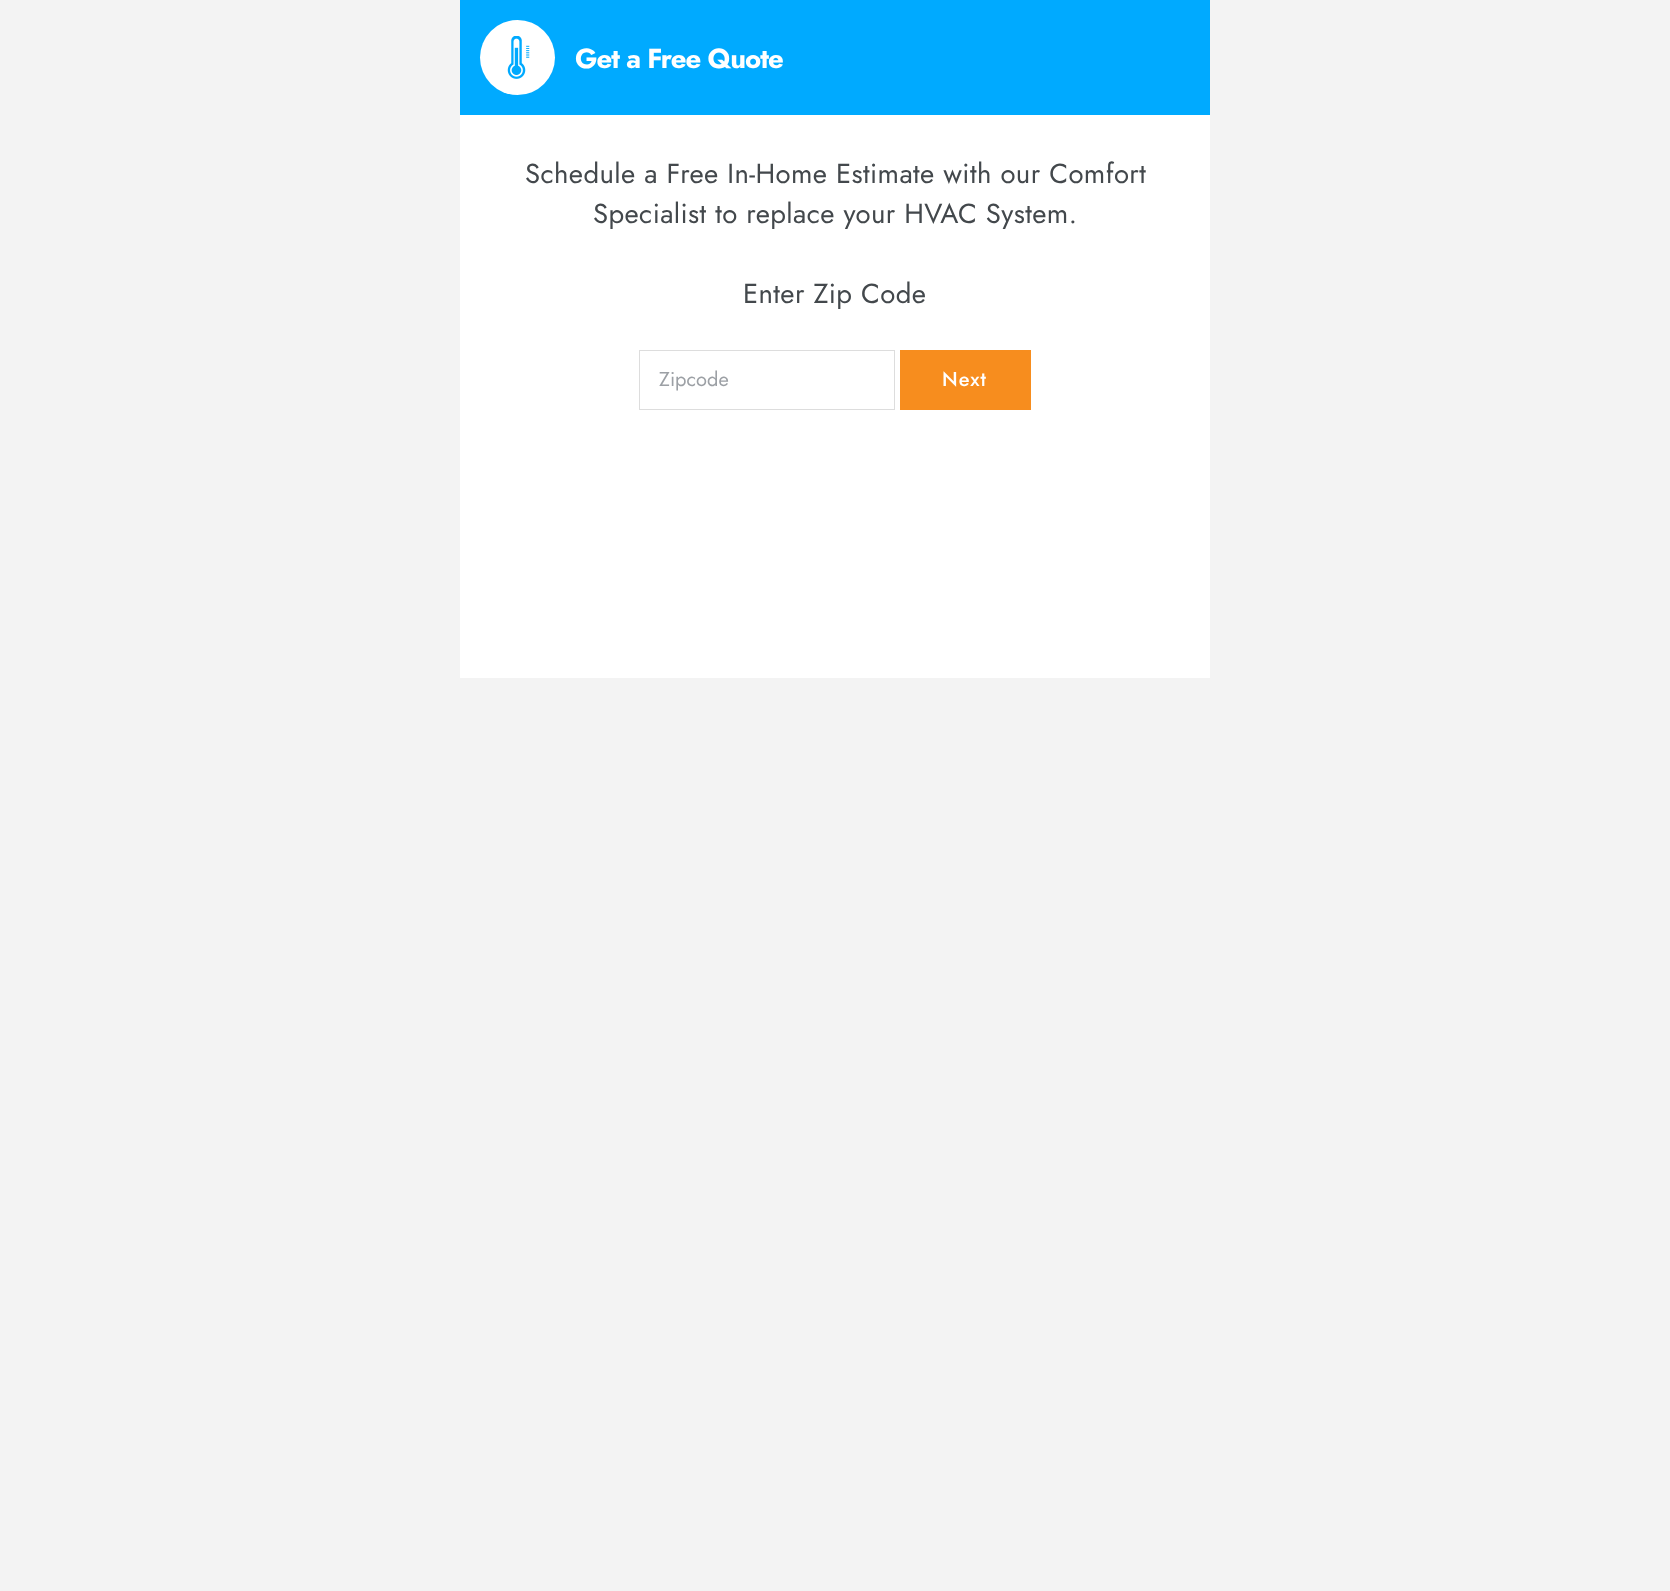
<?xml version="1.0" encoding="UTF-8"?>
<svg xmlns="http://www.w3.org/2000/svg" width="1670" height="1591">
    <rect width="100%" height="100%" fill="#F3F3F3"/>
    <rect x="460" y="0" width="750" height="115" fill="#00AAFF"/>
    <circle cx="517.5" cy="57.5" r="37.5" fill="#FFFFFF"/>
    <image x="507" y="36" width="23" height="43" href="img_01.png"/>
    <text x="575" y="68" font-family="Jost" font-size="27.5" font-weight="700" letter-spacing="-1" fill="#FFFFFF">Get a Free Quote</text>
    <rect x="460" y="115" width="750" height="563" fill="#FFFFFF"/>
    <text x="525" y="183" font-family="Jost" font-size="27.5" letter-spacing="0.4" fill="#43484C">Schedule a Free In-Home Estimate with our Comfort</text>
    <text x="593" y="223" font-family="Jost" font-size="27.5" letter-spacing="0.4" fill="#43484C">Specialist to replace your HVAC System.</text>
    <text x="743" y="303" font-family="Jost" font-size="27.5" letter-spacing="0.4" fill="#43484C">Enter Zip Code</text>
    <rect x="639.5" y="350.5" width="255" height="59" fill="none" stroke="#DDDDDD"/>
    <text x="659" y="386" font-family="Jost" font-size="20" fill="#9CA0A5">Zipcode</text>
    <rect x="900" y="350" width="131" height="60" fill="#F78D1E"/>
    <text x="942" y="386" font-family="Jost" font-size="20" font-weight="500" letter-spacing="1" fill="#FFFFFF">Next</text>
</svg>
